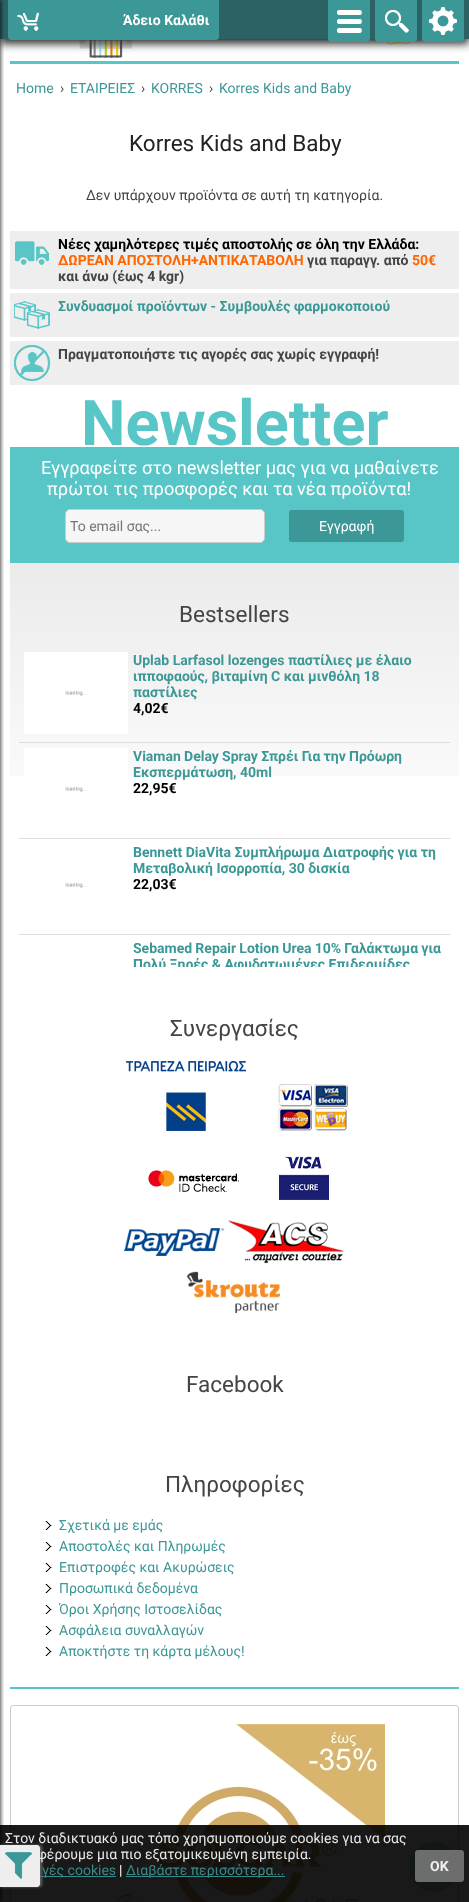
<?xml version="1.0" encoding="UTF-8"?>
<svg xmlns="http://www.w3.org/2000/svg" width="469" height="1902">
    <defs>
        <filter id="blur1" x="-50%" y="-200%" width="200%" height="500%"><feGaussianBlur stdDeviation="4"/></filter>
        <filter id="blur2" x="-50%" y="-200%" width="200%" height="500%"><feGaussianBlur stdDeviation="2.5"/></filter>
        <filter id="blur3" x="-50%" y="-200%" width="200%" height="500%"><feGaussianBlur stdDeviation="1.5"/></filter>
        <clipPath id="clip1"><rect x="19" y="647" width="431" height="320"/></clipPath>
    </defs>
    <rect width="100%" height="100%" fill="#FFFFFF"/>
    <image x="79" y="39" width="331" height="19" href="img_05.png"/>
    <rect x="0" y="5" width="469" height="39" fill="#333333" filter="url(#blur1)"/>
    <rect x="0" y="0" width="469" height="39" fill="#2C6263"/>
    <path d="M 328 0 H 370 V 39 C 370 40.5 368.5 42 367 42 H 331 C 329.5 42 328 40.5 328 39 Z" fill="#3C9797"/>
    <image x="337" y="10" width="25" height="23" href="img_01.png"/>
    <path d="M 375 0 H 417 V 39 C 417 40.5 415.5 42 414 42 H 378 C 376.5 42 375 40.5 375 39 Z" fill="#3C9797"/>
    <image x="385" y="10" width="24" height="23" href="img_02.png"/>
    <path d="M 422 0 H 464 V 39 C 464 40.5 462.5 42 461 42 H 425 C 423.5 42 422 40.5 422 39 Z" fill="#3C9797"/>
    <image x="429" y="7" width="28" height="28" href="img_03.png"/>
    <path d="M 8 0 H 219 V 37 C 219 38.5 217.5 40 216 40 H 11 C 9.5 40 8 38.5 8 37 Z" fill="#3C9797"/>
    <image x="17" y="12" width="22" height="19" href="img_04.png"/>
    <text x="123" y="25" font-family="Roboto" font-size="14" font-weight="700" fill="#FFFFFF">Άδειο Καλάθι</text>
    <rect x="10" y="61" width="449" height="3" fill="#58C5C7"/>
    <text x="16" y="93" font-family="Roboto" font-size="14" fill="#3C9797">Home</text>
    <text x="60" y="93" font-family="Roboto" font-size="14" fill="#444444">›</text>
    <text x="70" y="93" font-family="Roboto" font-size="14" fill="#3C9797">ΕΤΑΙΡΕΙΕΣ</text>
    <text x="141" y="93" font-family="Roboto" font-size="14" fill="#444444">›</text>
    <text x="151" y="93" font-family="Roboto" font-size="14" fill="#3C9797">KORRES</text>
    <text x="209" y="93" font-family="Roboto" font-size="14" fill="#444444">›</text>
    <text x="219" y="93" font-family="Roboto" font-size="14" fill="#3C9797">Korres Kids and Baby</text>
    <rect x="10.5" y="1705.5" width="448" height="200" rx="2.5" fill="none" stroke="#CCCCCC"/>
    <image x="116" y="1724" width="269" height="178" href="img_22.png"/>
    <circle cx="434" cy="1867" r="25" fill="#3C9797" fill-opacity="0.3"/>
    <image x="426" y="1862" width="16" height="10" href="img_23.png"/>
    <rect x="0" y="1825" width="469" height="77" fill="#000000" fill-opacity="0.9"/>
    <rect x="-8" y="0" width="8" height="1902" fill="#000000" filter="url(#blur2)"/>
    <rect x="40" y="1876" width="76" height="1" fill="#3C9797" fill-opacity="0.9"/>
    <rect x="0" y="1845" width="42" height="42" rx="3" fill="#666666" filter="url(#blur3)"/>
    <text x="5" y="1843" font-family="Roboto" font-size="14" fill="#E8E8E8">Στον διαδικτυακό μας τόπο χρησιμοποιούμε cookies για να σας</text>
    <text x="37" y="1859" font-family="Roboto" font-size="14" fill="#E8E8E8">φέρουμε μια πιο εξατομικευμένη εμπειρία.</text>
    <path d="M -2 1845 H 37 C 38.5 1845 40 1846.5 40 1848 V 1884 C 40 1885.5 38.5 1887 37 1887 H -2 Z" fill="#EEEEEE"/>
    <image x="5" y="1852" width="27" height="27" href="img_06.png"/>
    <text x="129" y="151" font-family="Roboto" font-size="22.5" fill="#222222">Korres Kids and Baby</text>
    <text x="86" y="200" font-family="Roboto" font-size="14" fill="#444444">Δεν υπάρχουν προϊόντα σε αυτή τη κατηγορία.</text>
    <rect x="10" y="231" width="449" height="58" fill="#EEEEEE"/>
    <image x="15" y="241" width="34" height="24" href="img_07.png"/>
    <text x="58" y="249" font-family="Roboto" font-size="14" font-weight="700" fill="#000000">Νέες χαμηλότερες τιμές αποστολής σε όλη την Ελλάδα:</text>
    <text x="58" y="265" font-family="Roboto" font-size="14" font-weight="700" fill="#FF6600">ΔΩΡΕΑΝ ΑΠΟΣΤΟΛΗ+ΑΝΤΙΚΑΤΑΒΟΛΗ</text>
    <text x="307" y="265" font-family="Roboto" font-size="14" font-weight="700" fill="#444444">για παραγγ. από</text>
    <text x="412" y="265" font-family="Roboto" font-size="14" font-weight="700" fill="#FF6600">50€</text>
    <text x="58" y="281" font-family="Roboto" font-size="14" font-weight="700" fill="#444444">και άνω (έως 4 kgr)</text>
    <rect x="10" y="293" width="449" height="44" fill="#EEEEEE"/>
    <image x="14" y="301" width="36" height="28" href="img_08.png"/>
    <text x="58" y="311" font-family="Roboto" font-size="14" font-weight="700" fill="#3C9797">Συνδυασμοί προϊόντων - Συμβουλές φαρμοκοποιού</text>
    <rect x="10" y="341" width="449" height="44" fill="#EEEEEE"/>
    <image x="14" y="345" width="36" height="36" href="img_09.png"/>
    <text x="58" y="359" font-family="Roboto" font-size="14" font-weight="700" fill="#444444">Πραγματοποιήστε τις αγορές σας χωρίς εγγραφή!</text>
    <text x="81" y="445" font-family="Roboto" font-size="63" font-weight="700" fill="#58C5C7">Newsletter</text>
    <rect x="10" y="447" width="449" height="116" fill="#58C5C7"/>
    <text x="41" y="474" font-family="Roboto" font-size="18.2" fill="#FFFFFF">Εγγραφείτε στο newsletter μας για να μαθαίνετε</text>
    <text x="47" y="495" font-family="Roboto" font-size="18.2" fill="#FFFFFF">πρώτοι τις προσφορές και τα νέα προϊόντα!</text>
    <rect x="65.5" y="509.5" width="199" height="33" rx="4.5" fill="#F6F6F6" stroke="#CCCCCC"/>
    <text x="70" y="531" font-family="Roboto" font-size="14" fill="#757575">Το email σας...</text>
    <rect x="289" y="510" width="115" height="32" rx="3" fill="#3C9797"/>
    <text x="319" y="531" font-family="Roboto" font-size="14" fill="#FFFFFF">Εγγραφή</text>
    <image x="10" y="563" width="449" height="213" href="img_10.png"/>
    <text x="179" y="622" font-family="Roboto" font-size="22.5" fill="#444444">Bestsellers</text>
    <rect x="19" y="742" width="431" height="1" fill="#DDDDDD"/>
    <image x="24" y="652" width="104" height="82" href="img_11.png"/>
    <text font-family="Roboto" font-size="14" font-weight="700" fill="#3C9797">
        <tspan x="133" y="665">Uplab Larfasol lozenges παστίλιες με έλαιο</tspan>
        <tspan x="133" y="681">ιπποφαούς, βιταμίνη C και μινθόλη 18</tspan>
        <tspan x="133" y="697">παστίλιες</tspan>
    </text>
    <text x="133" y="713" font-family="Roboto" font-size="14" font-weight="700" fill="#000000">4,02€</text>
    <rect x="19" y="838" width="431" height="1" fill="#DDDDDD"/>
    <image x="24" y="748" width="104" height="44" href="img_12.png"/>
    <text font-family="Roboto" font-size="14" font-weight="700" fill="#3C9797">
        <tspan x="133" y="761" word-spacing="-0.25">Viaman Delay Spray Σπρέι Για την Πρόωρη</tspan>
        <tspan x="133" y="777">Εκσπερμάτωση, 40ml</tspan>
    </text>
    <text x="133" y="793" font-family="Roboto" font-size="14" font-weight="700" fill="#000000">22,95€</text>
    <rect x="19" y="934" width="431" height="1" fill="#DDDDDD"/>
    <image x="65" y="882" width="22" height="6" href="img_13.png"/>
    <text font-family="Roboto" font-size="14" font-weight="700" fill="#3C9797">
        <tspan x="133" y="857">Bennett DiaVita Συμπλήρωμα Διατροφής για τη</tspan>
        <tspan x="133" y="873">Μεταβολική Ισορροπία, 30 δισκία</tspan>
    </text>
    <text x="133" y="889" font-family="Roboto" font-size="14" font-weight="700" fill="#000000">22,03€</text>
    <text x="133" y="953" word-spacing="-0.25" font-family="Roboto" font-size="14" font-weight="700" fill="#3C9797">Sebamed Repair Lotion Urea 10% Γαλάκτωμα για</text>
    <g clip-path="url(#clip1)">
        <text x="133" y="969" font-family="Roboto" font-size="14" font-weight="700" fill="#3C9797">Πολύ Ξηρές &amp; Αφυδατωμένες Επιδερμίδες</text>
    </g>
    <text x="170" y="1036" font-family="Roboto" font-size="22.5" fill="#444444">Συνεργασίες</text>
    <image x="126" y="1061" width="120" height="70" href="img_14.png"/>
    <image x="278" y="1084" width="70" height="47" href="img_15.png"/>
    <image x="148" y="1170" width="91" height="22" href="img_16.png"/>
    <image x="279" y="1156" width="50" height="44" href="img_17.png"/>
    <image x="124" y="1228" width="100" height="28" href="img_18.png"/>
    <image x="228" y="1220" width="116" height="44" href="img_19.png"/>
    <image x="187" y="1271" width="93" height="42" href="img_20.png"/>
    <text x="186" y="1392" font-family="Roboto" font-size="22.5" fill="#444444">Facebook</text>
    <text x="165" y="1492" font-family="Roboto" font-size="22.5" fill="#444444">Πληροφορίες</text>
    <image x="45" y="1521" width="7" height="9" href="img_21.png"/>
    <text x="59" y="1530" font-family="Roboto" font-size="14" fill="#3C9797">Σχετικά με εμάς</text>
    <image x="45" y="1542" width="7" height="9" href="img_21.png"/>
    <text x="59" y="1551" font-family="Roboto" font-size="14" fill="#3C9797">Αποστολές και Πληρωμές</text>
    <image x="45" y="1563" width="7" height="9" href="img_21.png"/>
    <text x="59" y="1572" font-family="Roboto" font-size="14" fill="#3C9797">Επιστροφές και Ακυρώσεις</text>
    <image x="45" y="1584" width="7" height="9" href="img_21.png"/>
    <text x="59" y="1593" font-family="Roboto" font-size="14" fill="#3C9797">Προσωπικά δεδομένα</text>
    <image x="45" y="1605" width="7" height="9" href="img_21.png"/>
    <text x="59" y="1614" font-family="Roboto" font-size="14" fill="#3C9797">Όροι Χρήσης Ιστοσελίδας</text>
    <image x="45" y="1626" width="7" height="9" href="img_21.png"/>
    <text x="59" y="1635" font-family="Roboto" font-size="14" fill="#3C9797">Ασφάλεια συναλλαγών</text>
    <image x="45" y="1647" width="7" height="9" href="img_21.png"/>
    <text x="59" y="1656" font-family="Roboto" font-size="14" fill="#3C9797">Αποκτήστε τη κάρτα μέλους!</text>
    <rect x="10" y="1687" width="449" height="2" fill="#58C5C7"/>
    <text x="42" y="1875" font-family="Roboto" font-size="14" fill="#398B8B">γές cookies</text>
    <text x="119" y="1875" font-family="Roboto" font-size="14" fill="#FFFFFF">|</text>
    <rect x="126" y="1876" width="159" height="1" fill="#3C9797" fill-opacity="0.9"/>
    <text x="126" y="1875" font-family="Roboto" font-size="14" fill="#398B8B">Διαβάστε περισσότερα...</text>
    <rect x="415" y="1850" width="49" height="32" rx="3" fill="#777777" fill-opacity="0.9"/>
    <text x="430" y="1871" font-family="Roboto" font-size="14" font-weight="700" fill="#F0F0F0">OK</text>
</svg>
